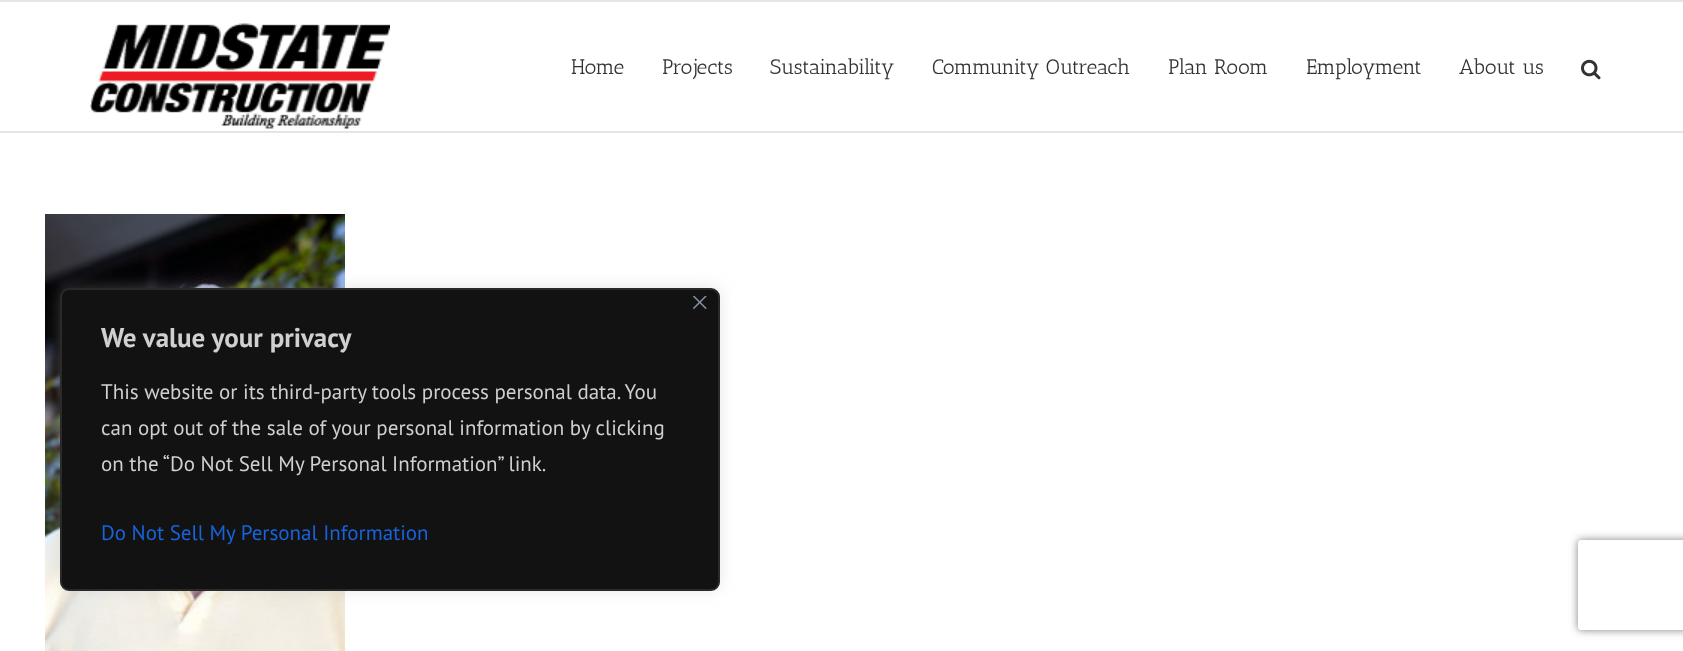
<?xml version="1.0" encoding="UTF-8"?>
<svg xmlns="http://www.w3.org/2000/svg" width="1683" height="651">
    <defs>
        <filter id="blur1" x="-50%" y="-200%" width="200%" height="500%"><feGaussianBlur stdDeviation="7.5"/></filter>
        <clipPath id="clip1"><path d="M 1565 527 H 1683 V 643 H 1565 Z M 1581 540 H 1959 C 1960.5 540 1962 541.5 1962 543 V 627 C 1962 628.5 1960.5 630 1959 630 H 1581 C 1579.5 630 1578 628.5 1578 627 V 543 C 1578 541.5 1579.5 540 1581 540 Z" clip-rule="evenodd"/></clipPath>
        <filter id="blur2" x="-50%" y="-200%" width="200%" height="500%"><feGaussianBlur stdDeviation="4"/></filter>
    </defs>
    <rect width="100%" height="100%" fill="#FFFFFF"/>
    <rect x="0" y="0" width="1683" height="2" fill="#E5E5E5"/>
    <rect x="0" y="131" width="1683" height="2" fill="#E5E5E5"/>
    <image x="90" y="23" width="300" height="106" href="img_01.png"/>
    <text x="571" y="74" font-family="Antic Slab" font-size="21" fill="#333333">Home</text>
    <text x="662" y="74" font-family="Antic Slab" font-size="21" fill="#333333">Projects</text>
    <text x="770" y="74" font-family="Antic Slab" font-size="21" fill="#333333">Sustainability</text>
    <text x="932" y="74" font-family="Antic Slab" font-size="21" fill="#333333">Community Outreach</text>
    <text x="1168" y="74" font-family="Antic Slab" font-size="21" fill="#333333">Plan Room</text>
    <text x="1306" y="74" font-family="Antic Slab" font-size="21" fill="#333333">Employment</text>
    <text x="1459" y="74" font-family="Antic Slab" font-size="21" fill="#333333">About us</text>
    <image x="1581" y="59" width="20" height="21" href="img_02.png"/>
    <image x="45" y="214" width="300" height="437" href="img_03.png"/>
    <rect x="60" y="287" width="660" height="303" rx="9" fill="#ACABAB" fill-opacity="0.3" filter="url(#blur1)"/>
    <rect x="61" y="289" width="658" height="301" rx="8" fill="#121212" stroke="#2A2A2A" stroke-width="2"/>
    <image x="693" y="296" width="14" height="13" href="img_04.png"/>
    <text x="101" y="347" font-family="PT Sans" font-size="27" font-weight="700" fill="#D0D0D0">We value your privacy</text>
    <text font-family="PT Sans" font-size="21" fill="#D0D0D0">
        <tspan x="101" y="399">This website or its third-party tools process personal data. You</tspan>
        <tspan x="101" y="435">can opt out of the sale of your personal information by clicking</tspan>
        <tspan x="101" y="471">on the “Do Not Sell My Personal Information” link.</tspan>
    </text>
    <text x="101" y="540" font-family="PT Sans" font-size="21" fill="#1863DC">Do Not Sell My Personal Information</text>
    <g clip-path="url(#clip1)">
        <rect x="1578" y="540" width="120" height="90" rx="3" fill="#808080" filter="url(#blur2)"/>
    </g>
</svg>
